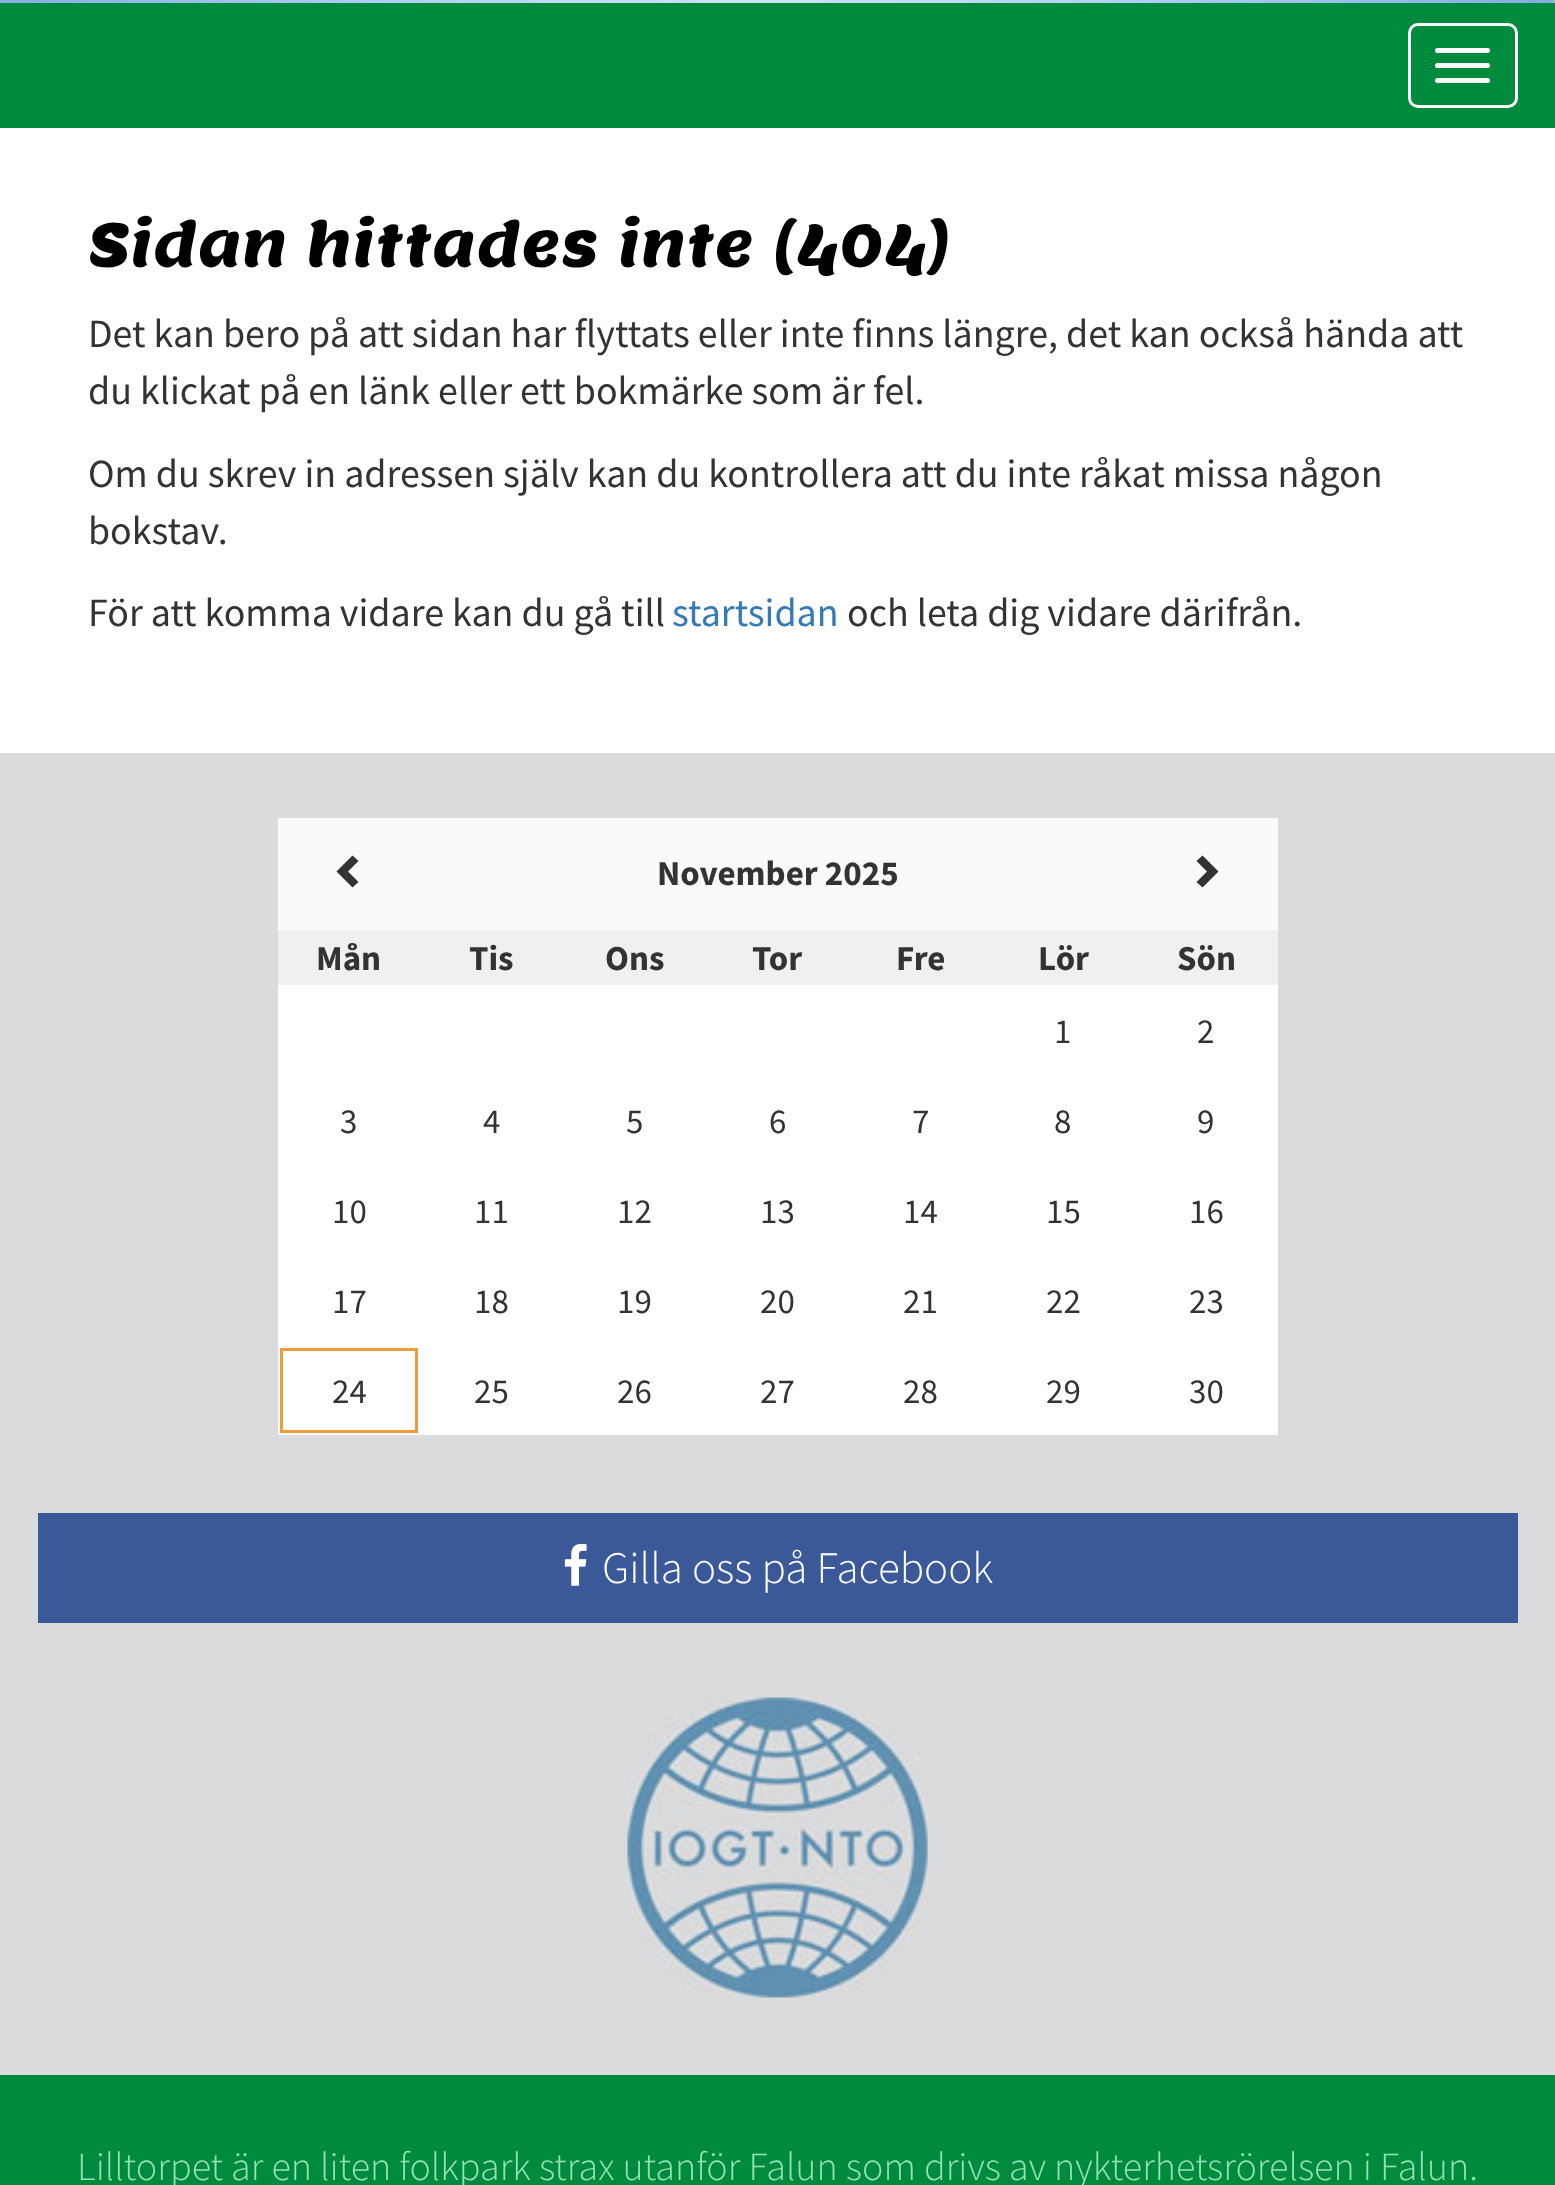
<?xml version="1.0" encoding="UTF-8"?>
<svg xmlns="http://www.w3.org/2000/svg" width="1555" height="2185">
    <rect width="100%" height="100%" fill="#FFFFFF"/>
    <image x="0" y="0" width="1555" height="3" href="img_01.png"/>
    <rect x="0" y="3" width="1555" height="125" fill="#008A3D"/>
    <rect x="1409.5" y="24.5" width="107" height="82" rx="8.5" fill="none" stroke="#FFFFFF" stroke-width="3"/>
    <rect x="1435" y="48" width="55" height="5" rx="2.5" fill="#FFFFFF"/>
    <rect x="1435" y="63" width="55" height="5" rx="2.5" fill="#FFFFFF"/>
    <rect x="1435" y="78" width="55" height="5" rx="2.5" fill="#FFFFFF"/>
    <text x="88" y="266" font-family="Lemon" font-size="60" fill="#000000">Sidan hittades inte (404)</text>
    <text font-family="Source Sans Pro" font-size="40" fill="#333333">
        <tspan x="88" y="347">Det kan bero på att sidan har flyttats eller inte finns längre, det kan också hända att</tspan>
        <tspan x="88" y="404">du klickat på en länk eller ett bokmärke som är fel.</tspan>
    </text>
    <text font-family="Source Sans Pro" font-size="40" fill="#333333">
        <tspan x="88" y="487">Om du skrev in adressen själv kan du kontrollera att du inte råkat missa någon</tspan>
        <tspan x="88" y="544">bokstav.</tspan>
    </text>
    <text x="88" y="626" font-family="Source Sans Pro" font-size="40" fill="#333333">För att komma vidare kan du gå till</text>
    <text x="672" y="626" font-family="Source Sans Pro" font-size="40" fill="#337AB7">startsidan</text>
    <text x="847" y="626" font-family="Source Sans Pro" font-size="40" fill="#333333">och leta dig vidare därifrån.</text>
    <rect x="0" y="753" width="1555" height="1322" fill="#DADBDC"/>
    <rect x="278" y="818" width="1000" height="112" fill="#FAFAFA"/>
    <path d="M 358.5 861 L 348 871.5 L 358.5 882 L 352.5 887.5 L 336.5 871.5 L 352.5 855.5 Z" fill="#333333"/>
    <text x="657" y="885" font-family="Source Sans Pro" font-size="35" font-weight="700" fill="#333333">November 2025</text>
    <path d="M 1218.5 871.5 L 1202.5 887.5 L 1196.5 882 L 1207 871.5 L 1196.5 861 L 1202.5 855.5 Z" fill="#333333"/>
    <rect x="278" y="930" width="1000" height="55" fill="#F0F0F0"/>
    <text x="316" y="970" font-family="Source Sans Pro" font-size="35" font-weight="700" fill="#333333">Mån</text>
    <text x="469" y="970" font-family="Source Sans Pro" font-size="35" font-weight="700" fill="#333333">Tis</text>
    <text x="605" y="970" font-family="Source Sans Pro" font-size="35" font-weight="700" fill="#333333">Ons</text>
    <text x="752" y="970" font-family="Source Sans Pro" font-size="35" font-weight="700" fill="#333333">Tor</text>
    <text x="896" y="970" font-family="Source Sans Pro" font-size="35" font-weight="700" fill="#333333">Fre</text>
    <text x="1038" y="970" font-family="Source Sans Pro" font-size="35" font-weight="700" fill="#333333">Lör</text>
    <text x="1177" y="970" font-family="Source Sans Pro" font-size="35" font-weight="700" fill="#333333">Sön</text>
    <rect x="278" y="985" width="1000" height="90" fill="#FFFFFF"/>
    <text x="1054" y="1043" font-family="Source Sans Pro" font-size="35" fill="#333333">1</text>
    <text x="1197" y="1043" font-family="Source Sans Pro" font-size="35" fill="#333333">2</text>
    <rect x="278" y="1075" width="1000" height="90" fill="#FFFFFF"/>
    <text x="340" y="1133" font-family="Source Sans Pro" font-size="35" fill="#333333">3</text>
    <text x="483" y="1133" font-family="Source Sans Pro" font-size="35" fill="#333333">4</text>
    <text x="626" y="1133" font-family="Source Sans Pro" font-size="35" fill="#333333">5</text>
    <text x="769" y="1133" font-family="Source Sans Pro" font-size="35" fill="#333333">6</text>
    <text x="912" y="1133" font-family="Source Sans Pro" font-size="35" fill="#333333">7</text>
    <text x="1054" y="1133" font-family="Source Sans Pro" font-size="35" fill="#333333">8</text>
    <text x="1197" y="1133" font-family="Source Sans Pro" font-size="35" fill="#333333">9</text>
    <rect x="278" y="1165" width="1000" height="90" fill="#FFFFFF"/>
    <text x="332" y="1223" font-family="Source Sans Pro" font-size="35" fill="#333333">10</text>
    <text x="474" y="1223" font-family="Source Sans Pro" font-size="35" fill="#333333">11</text>
    <text x="617" y="1223" font-family="Source Sans Pro" font-size="35" fill="#333333">12</text>
    <text x="760" y="1223" font-family="Source Sans Pro" font-size="35" fill="#333333">13</text>
    <text x="903" y="1223" font-family="Source Sans Pro" font-size="35" fill="#333333">14</text>
    <text x="1046" y="1223" font-family="Source Sans Pro" font-size="35" fill="#333333">15</text>
    <text x="1189" y="1223" font-family="Source Sans Pro" font-size="35" fill="#333333">16</text>
    <rect x="278" y="1255" width="1000" height="90" fill="#FFFFFF"/>
    <text x="332" y="1313" font-family="Source Sans Pro" font-size="35" fill="#333333">17</text>
    <text x="474" y="1313" font-family="Source Sans Pro" font-size="35" fill="#333333">18</text>
    <text x="617" y="1313" font-family="Source Sans Pro" font-size="35" fill="#333333">19</text>
    <text x="760" y="1313" font-family="Source Sans Pro" font-size="35" fill="#333333">20</text>
    <text x="903" y="1313" font-family="Source Sans Pro" font-size="35" fill="#333333">21</text>
    <text x="1046" y="1313" font-family="Source Sans Pro" font-size="35" fill="#333333">22</text>
    <text x="1189" y="1313" font-family="Source Sans Pro" font-size="35" fill="#333333">23</text>
    <rect x="278" y="1435" width="1002" height="3" fill="#DDDDDD"/>
    <rect x="278" y="1345" width="1000" height="90" fill="#FFFFFF"/>
    <rect x="281.5" y="1349.5" width="135" height="82" fill="none" stroke="#F09C3C" stroke-width="3"/>
    <text x="332" y="1403" font-family="Source Sans Pro" font-size="35" fill="#333333">24</text>
    <text x="474" y="1403" font-family="Source Sans Pro" font-size="35" fill="#333333">25</text>
    <text x="617" y="1403" font-family="Source Sans Pro" font-size="35" fill="#333333">26</text>
    <text x="760" y="1403" font-family="Source Sans Pro" font-size="35" fill="#333333">27</text>
    <text x="903" y="1403" font-family="Source Sans Pro" font-size="35" fill="#333333">28</text>
    <text x="1046" y="1403" font-family="Source Sans Pro" font-size="35" fill="#333333">29</text>
    <text x="1189" y="1403" font-family="Source Sans Pro" font-size="35" fill="#333333">30</text>
    <rect x="38" y="1513" width="1480" height="110" fill="#3B5998"/>
    <image x="564" y="1543" width="23" height="43" href="img_02.png"/>
    <text x="602" y="1583" font-family="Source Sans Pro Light" font-size="45" font-weight="300" fill="#FFFFFF">Gilla oss på Facebook</text>
    <image x="627" y="1697" width="301" height="301" href="img_03.png"/>
    <rect x="0" y="2075" width="1555" height="110" fill="#008A3D"/>
    <text x="77" y="2180" font-family="Source Sans Pro Light" font-size="40" font-weight="300" fill="#92E2B6">Lilltorpet är en liten folkpark strax utanför Falun som drivs av nykterhetsrörelsen i Falun.</text>
</svg>
